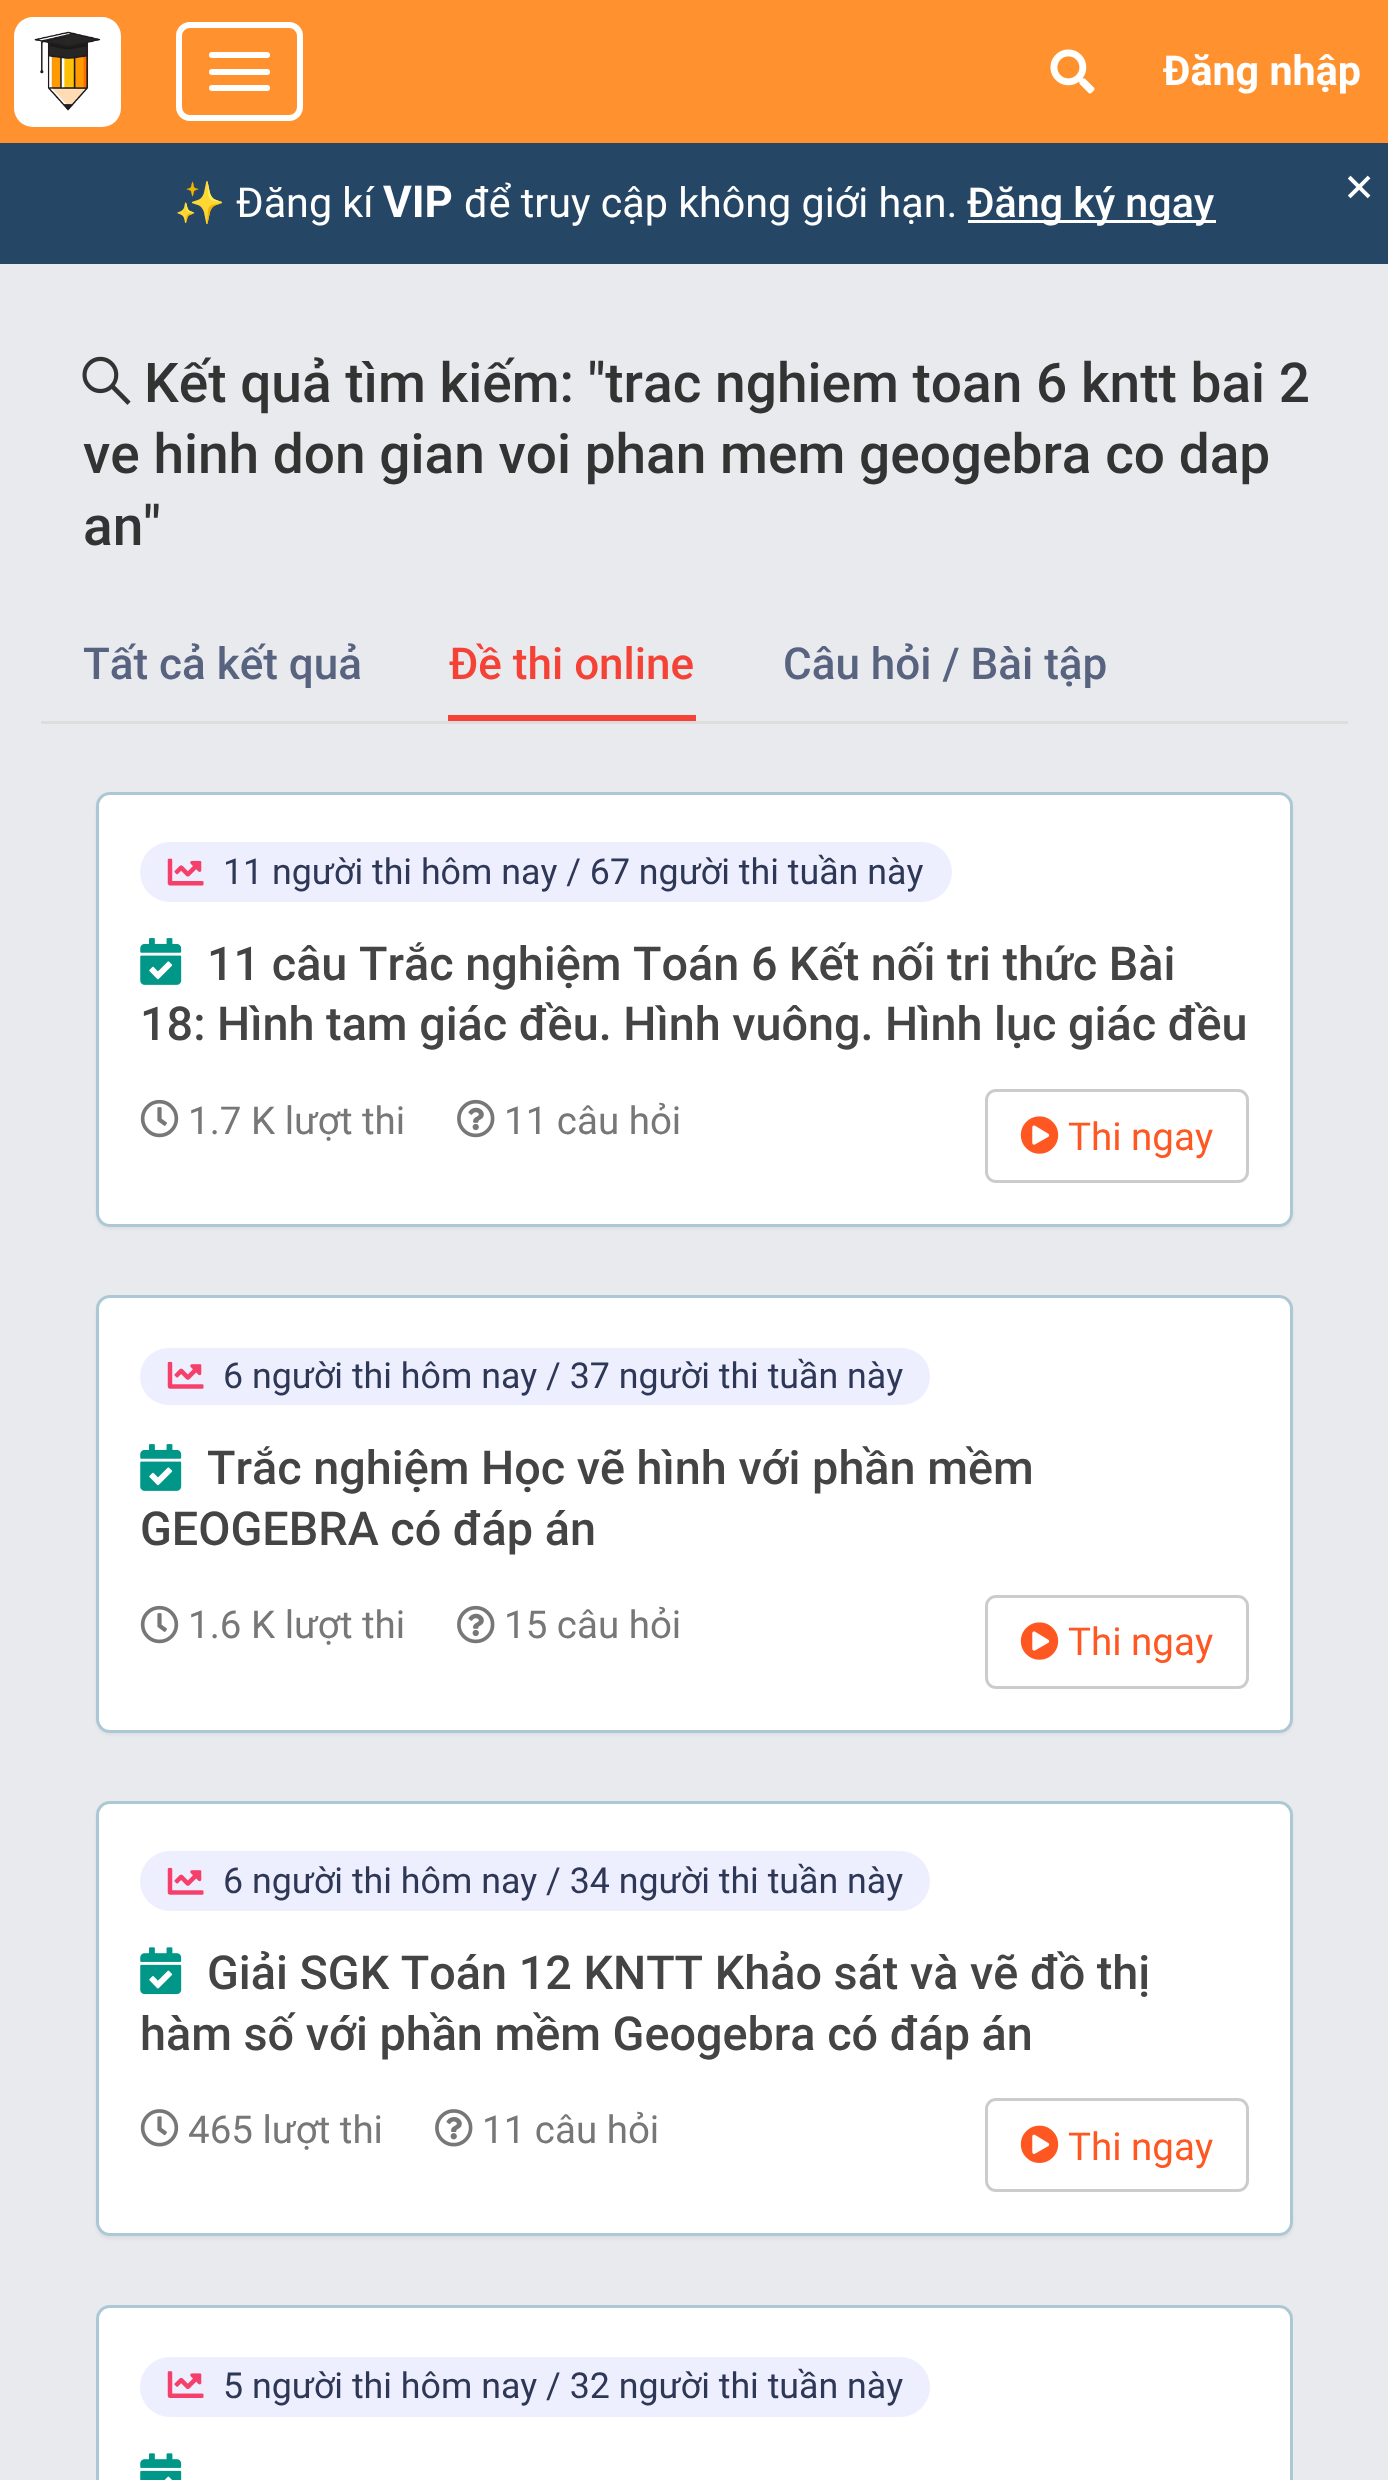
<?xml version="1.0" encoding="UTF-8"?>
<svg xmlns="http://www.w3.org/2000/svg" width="1388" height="2480">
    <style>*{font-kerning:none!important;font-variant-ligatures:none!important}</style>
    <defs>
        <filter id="blur1" x="-50%" y="-200%" width="200%" height="500%"><feGaussianBlur stdDeviation="1.5"/></filter>
    </defs>
    <rect width="100%" height="100%" fill="#E8EAED"/>
    <rect x="0" y="0" width="1388" height="143" fill="#FF922E"/>
    <rect x="14" y="17" width="107" height="110" rx="19" fill="#FFFFFF"/>
    <image x="34" y="31" width="67" height="80" href="img_01.png"/>
    <rect x="179" y="25" width="121" height="93" rx="11" fill="none" stroke="#FFFFFF" stroke-width="6"/>
    <rect x="209" y="52" width="61" height="6" rx="3" fill="#FFFFFF"/>
    <rect x="209" y="69" width="61" height="6" rx="3" fill="#FFFFFF"/>
    <rect x="209" y="85" width="61" height="6" rx="3" fill="#FFFFFF"/>
    <image x="1050" y="49" width="45" height="45" href="img_02.png"/>
    <text x="1163" y="85" font-family="Roboto" font-size="41.25" font-weight="700" fill="#FFFFFF">Đăng nhập</text>
    <rect x="0" y="143" width="1388" height="121" fill="#264666"/>
    <text x="174" y="217" font-family="Noto Color Emoji" font-size="41.25" fill="#FFFFFF">✨</text>
    <text x="236" y="217" font-family="Roboto" font-size="41.25" fill="#FFFFFF">Đăng kí</text>
    <text x="383" y="217" font-family="Roboto" font-size="44" font-weight="700" fill="#FFFFFF">VIP</text>
    <text x="464" y="217" font-family="Roboto" font-size="41.25" fill="#FFFFFF">để truy cập không giới hạn.</text>
    <rect x="968" y="220" width="248" height="3" fill="#FFFFFF"/>
    <text x="967" y="217" font-family="Roboto" font-size="41.25" font-weight="500" fill="#FFFFFF">Đăng ký ngay</text>
    <text x="1343" y="201" font-family="DejaVu Sans" font-size="38.5" fill="#FFFFFF">✕</text>
    <image x="82" y="356" width="49" height="49" href="img_03.png"/>
    <text x="144" y="402" font-family="Roboto" font-size="55" font-weight="500" fill="#333333">Kết quả tìm kiếm: "trac nghiem toan 6 kntt bai 2</text>
    <text font-family="Roboto" font-size="55" font-weight="500" fill="#333333">
        <tspan x="83" y="473">ve hinh don gian voi phan mem geogebra co dap</tspan>
        <tspan x="83" y="545">an"</tspan>
    </text>
    <rect x="41" y="721" width="1307" height="3" fill="#DDDDDD"/>
    <text x="83" y="679" font-family="Roboto" font-size="44" font-weight="500" fill="#586380">Tất cả kết quả</text>
    <rect x="448" y="715" width="248" height="6" fill="#F44336"/>
    <text x="449" y="679" font-family="Roboto" font-size="44" font-weight="500" fill="#F44336">Đề thi online</text>
    <text x="783" y="679" font-family="Roboto" font-size="44" font-weight="500" fill="#586380">Câu hỏi / Bài tập</text>
    <rect x="96" y="795" width="1197" height="434" rx="14" fill="#000000" fill-opacity="0.05" filter="url(#blur1)"/>
    <rect x="97.5" y="793.5" width="1194" height="432" rx="12.5" fill="#FFFFFF" stroke="#ADC8D5" stroke-width="3"/>
    <rect x="140" y="842" width="812" height="60" rx="30" fill="#EDEFFF"/>
    <image x="167" y="858" width="37" height="28" href="img_04.png"/>
    <text x="223" y="884" font-family="Roboto" font-size="35.75" fill="#2E3856">11 người thi hôm nay / 67 người thi tuần này</text>
    <image x="140" y="938" width="42" height="47" href="img_05.png"/>
    <text x="207" y="980" font-family="Roboto" font-size="46.75" font-weight="500" fill="#444444">11 câu Trắc nghiệm Toán 6 Kết nối tri thức Bài</text>
    <text x="140" y="1040" font-family="Roboto" font-size="46.75" font-weight="500" fill="#444444">18: Hình tam giác đều. Hình vuông. Hình lục giác đều</text>
    <image x="140" y="1099" width="39" height="39" href="img_06.png"/>
    <text x="188" y="1134" font-family="Roboto" font-size="38.5" fill="#777777">1.7 K lượt thi</text>
    <image x="457" y="1099" width="38" height="39" href="img_07.png"/>
    <text x="504" y="1134" font-family="Roboto" font-size="38.5" fill="#777777">11 câu hỏi</text>
    <rect x="986.5" y="1090.5" width="261" height="91" rx="9.5" fill="none" stroke="#CCCCCC" stroke-width="3"/>
    <image x="1020" y="1116" width="39" height="38" href="img_08.png"/>
    <text x="1068" y="1150" font-family="Roboto" font-size="38.5" fill="#FF5722">Thi ngay</text>
    <rect x="96" y="1298" width="1197" height="437" rx="14" fill="#000000" fill-opacity="0.05" filter="url(#blur1)"/>
    <rect x="97.5" y="1296.5" width="1194" height="435" rx="12.5" fill="#FFFFFF" stroke="#ADC8D5" stroke-width="3"/>
    <rect x="140" y="1348" width="790" height="57" rx="28.5" fill="#EDEFFF"/>
    <image x="167" y="1361" width="37" height="28" href="img_09.png"/>
    <text x="223" y="1388" font-family="Roboto" font-size="35.75" fill="#2E3856">6 người thi hôm nay / 37 người thi tuần này</text>
    <image x="140" y="1444" width="42" height="47" href="img_05.png"/>
    <text x="207" y="1484" font-family="Roboto" font-size="46.75" font-weight="500" fill="#444444">Trắc nghiệm Học vẽ hình với phần mềm</text>
    <text x="140" y="1545" font-family="Roboto" font-size="46.75" font-weight="500" fill="#444444">GEOGEBRA có đáp án</text>
    <image x="140" y="1605" width="39" height="39" href="img_06.png"/>
    <text x="188" y="1638" font-family="Roboto" font-size="38.5" fill="#777777">1.6 K lượt thi</text>
    <image x="457" y="1605" width="38" height="39" href="img_07.png"/>
    <text x="504" y="1638" font-family="Roboto" font-size="38.5" fill="#777777">15 câu hỏi</text>
    <rect x="986.5" y="1596.5" width="261" height="91" rx="9.5" fill="none" stroke="#CCCCCC" stroke-width="3"/>
    <image x="1020" y="1622" width="39" height="38" href="img_08.png"/>
    <text x="1068" y="1655" font-family="Roboto" font-size="38.5" fill="#FF5722">Thi ngay</text>
    <rect x="96" y="1804" width="1197" height="435" rx="14" fill="#000000" fill-opacity="0.05" filter="url(#blur1)"/>
    <rect x="97.5" y="1802.5" width="1194" height="432" rx="12.5" fill="#FFFFFF" stroke="#ADC8D5" stroke-width="3"/>
    <rect x="140" y="1851" width="790" height="60" rx="30" fill="#EDEFFF"/>
    <image x="167" y="1867" width="37" height="28" href="img_09.png"/>
    <text x="223" y="1893" font-family="Roboto" font-size="35.75" fill="#2E3856">6 người thi hôm nay / 34 người thi tuần này</text>
    <image x="140" y="1947" width="42" height="48" href="img_10.png"/>
    <text x="207" y="1989" font-family="Roboto" font-size="46.75" font-weight="500" fill="#444444">Giải SGK Toán 12 KNTT Khảo sát và vẽ đồ thị</text>
    <text x="140" y="2050" font-family="Roboto" font-size="46.75" font-weight="500" fill="#444444">hàm số với phần mềm Geogebra có đáp án</text>
    <image x="140" y="2109" width="39" height="38" href="img_11.png"/>
    <text x="188" y="2143" font-family="Roboto" font-size="38.5" fill="#777777">465 lượt thi</text>
    <image x="435" y="2109" width="38" height="38" href="img_12.png"/>
    <text x="482" y="2143" font-family="Roboto" font-size="38.5" fill="#777777">11 câu hỏi</text>
    <rect x="986.5" y="2099.5" width="261" height="91" rx="9.5" fill="none" stroke="#CCCCCC" stroke-width="3"/>
    <image x="1020" y="2125" width="39" height="38" href="img_13.png"/>
    <text x="1068" y="2160" font-family="Roboto" font-size="38.5" fill="#FF5722">Thi ngay</text>
    <rect x="97.5" y="2306.5" width="1194" height="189" rx="12.5" fill="#FFFFFF" stroke="#ADC8D5" stroke-width="3"/>
    <rect x="140" y="2357" width="790" height="60" rx="30" fill="#EDEFFF"/>
    <image x="167" y="2371" width="37" height="27" href="img_14.png"/>
    <text x="223" y="2398" font-family="Roboto" font-size="35.75" fill="#2E3856">5 người thi hôm nay / 32 người thi tuần này</text>
    <image x="140" y="2453" width="42" height="27" href="img_15.png"/>
</svg>
